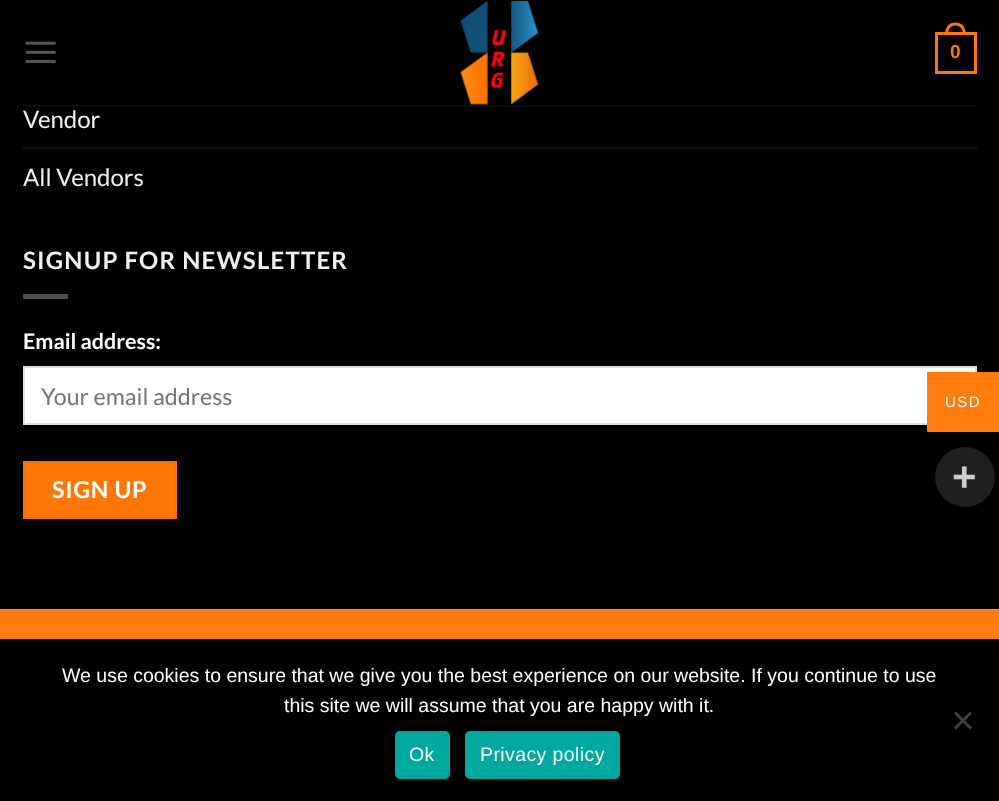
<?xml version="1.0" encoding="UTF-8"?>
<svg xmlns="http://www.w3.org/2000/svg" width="999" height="801">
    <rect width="100%" height="100%" fill="#000000"/>
    <image x="25" y="41" width="31" height="22" href="img_01.png"/>
    <image x="460" y="0" width="79" height="105" href="img_02.png"/>
    <rect x="936.5" y="33.5" width="39" height="39" fill="none" stroke="#FF7807" stroke-width="3"/>
    <path d="M 955.5 22.5 C 962.5 22.5 966 28 966 34.5 H 945 C 945 28 948.5 22.5 955.5 22.5 Z M 955.5 25.5 C 961 25.5 963 30 963 34.5 H 948 C 948 30 950 25.5 955.5 25.5 Z" fill="#FF7807" fill-rule="evenodd"/>
    <text x="950" y="58" font-family="Liberation Sans" font-size="19" font-weight="700" fill="#FF7807">0</text>
    <rect x="23" y="105" width="954" height="2" fill="#0C0C0C"/>
    <text x="23" y="128" font-family="Lato" font-size="24" fill="#F1F1F1">Vendor</text>
    <rect x="23" y="147" width="954" height="2" fill="#141414"/>
    <text x="23" y="186" font-family="Lato" font-size="24" fill="#F1F1F1">All Vendors</text>
    <text x="23" y="269" font-family="Lato" font-size="24" font-weight="700" letter-spacing="1.2" fill="#F1F1F1">SIGNUP FOR NEWSLETTER</text>
    <rect x="23" y="294" width="45" height="5" fill="#4D4D4D"/>
    <text x="23" y="349" font-family="Lato" font-size="21.5" font-weight="700" fill="#FFFFFF">Email address:</text>
    <rect x="24" y="367" width="952" height="57" fill="#FFFFFF" stroke="#DDDDDD" stroke-width="2"/>
    <text x="41" y="405" font-family="Lato" font-size="23.25" fill="#757575">Your email address</text>
    <rect x="24" y="462" width="152" height="56" fill="#FF7807" stroke="#F27207" stroke-width="2"/>
    <text x="52" y="498" font-family="Lato" font-size="23.25" font-weight="700" letter-spacing="0.75" fill="#FFFFFF">SIGN UP</text>
    <rect x="0" y="609" width="999" height="30" fill="#FF7C0E"/>
    <rect x="927" y="372" width="72" height="60" fill="#FF7C0E"/>
    <text x="945" y="407" font-family="Liberation Sans" font-size="15" letter-spacing="1.5" fill="#FFFFFF">USD</text>
    <circle cx="965" cy="477" r="30" fill="#1F1F1F"/>
    <text x="952" y="491" font-family="Liberation Sans" font-size="42" font-weight="700" fill="#CCCCCC">+</text>
    <text x="62" y="682" font-family="Liberation Sans" font-size="19.5" fill="#FFFFFF">We use cookies to ensure that we give you the best experience on our website. If you continue to use</text>
    <text x="284" y="712" font-family="Liberation Sans" font-size="19.5" fill="#FFFFFF">this site we will assume that you are happy with it.</text>
    <path d="M 970 711.5 L 972 713.5 L 956 729.5 L 954 727.5 Z" fill="#404040"/>
    <path d="M 954 713.5 L 956 711.5 L 972 727.5 L 970 729.5 Z" fill="#404040"/>
    <rect x="395" y="731" width="55" height="48" rx="5" fill="#00A99D"/>
    <text x="409" y="761" font-family="Liberation Sans" font-size="19.5" letter-spacing="0.4" fill="#FFFFFF">Ok</text>
    <rect x="465" y="731" width="155" height="48" rx="5" fill="#00A99D"/>
    <text x="480" y="761" font-family="Liberation Sans" font-size="19.5" letter-spacing="0.4" fill="#FFFFFF">Privacy policy</text>
</svg>
